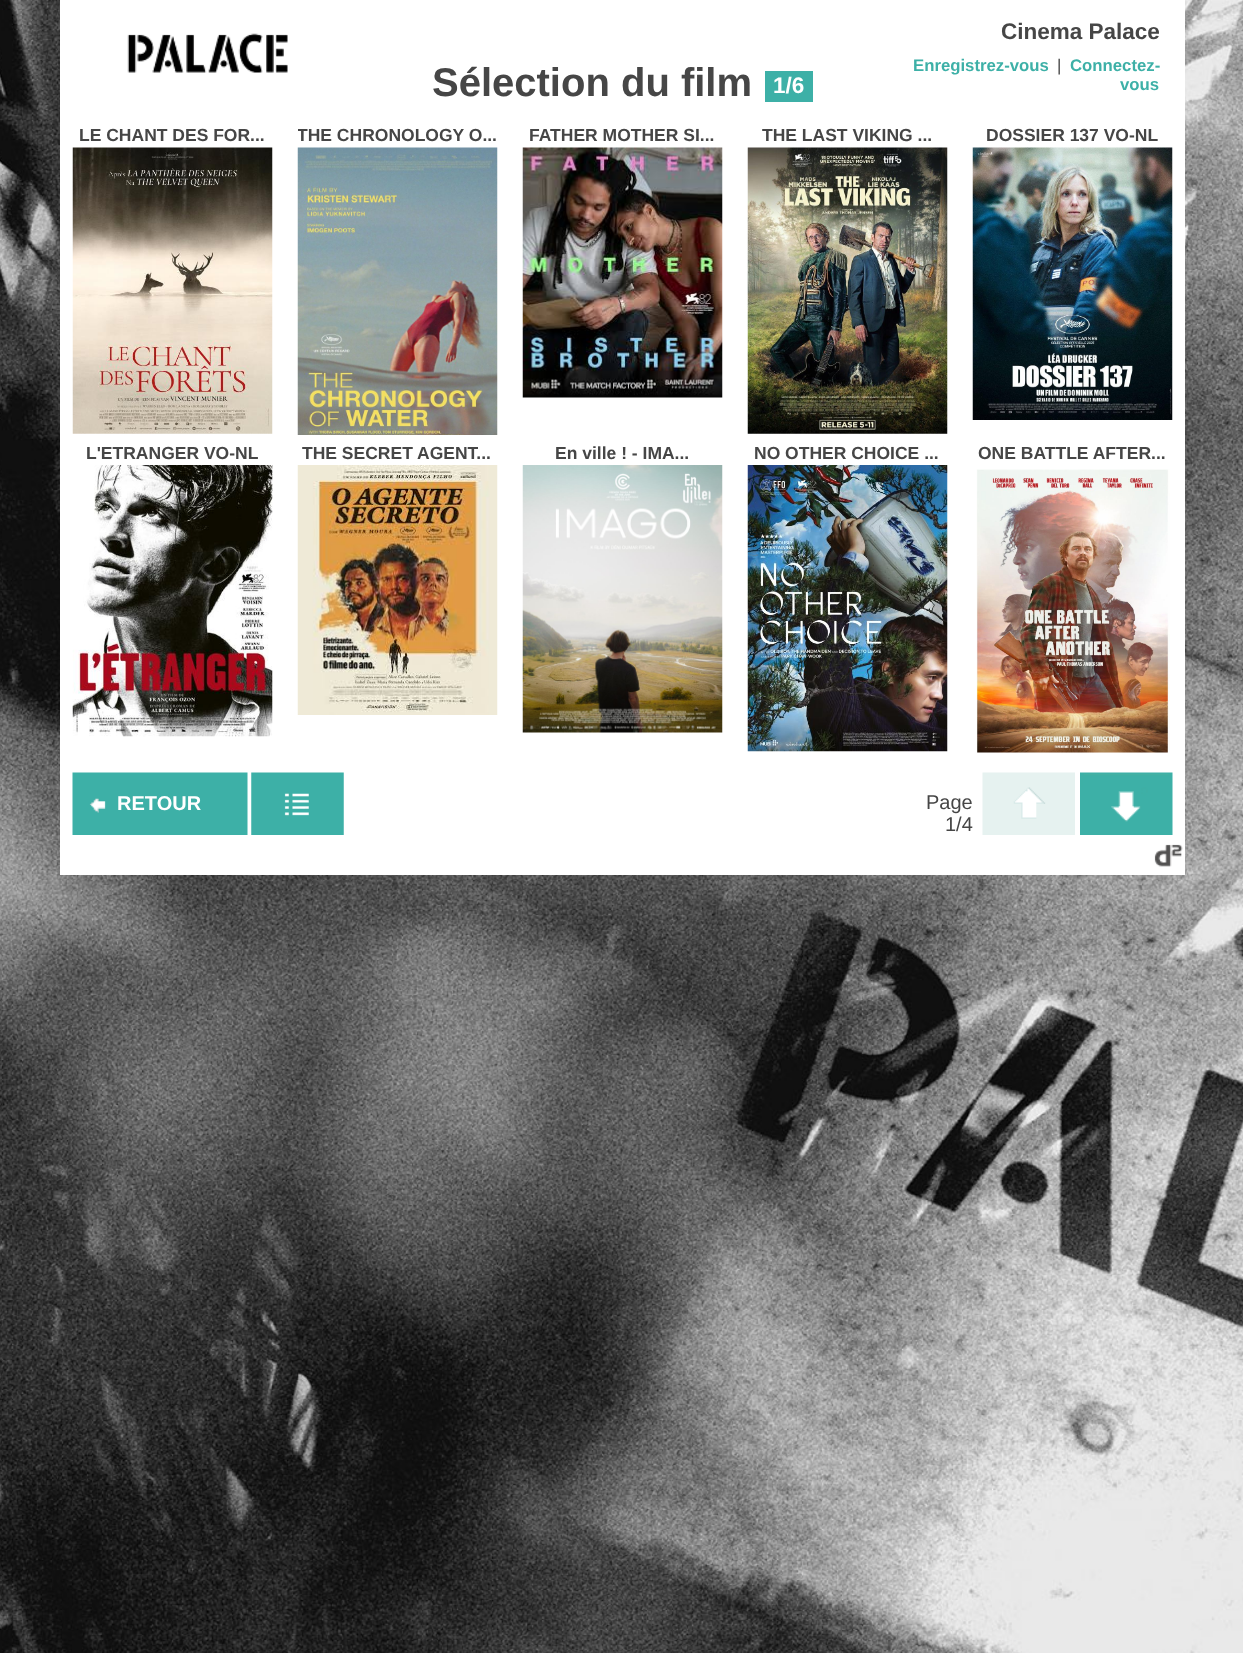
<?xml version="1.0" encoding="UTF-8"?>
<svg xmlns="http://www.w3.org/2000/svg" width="1243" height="1653">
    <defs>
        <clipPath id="clip1"><rect x="298" y="123" width="200" height="312"/></clipPath>
    </defs>
    <rect width="100%" height="100%" fill="#FFFFFF"/>
    <image x="0" y="0" width="1243" height="1653" href="img_01.png"/>
    <rect x="60" y="0" width="1125" height="875" fill="#FFFFFF"/>
    <image x="127" y="33" width="161" height="40" href="img_02.png"/>
    <text x="1001" y="39" font-family="Liberation Sans" font-size="22.5" font-weight="700" fill="#464646">Cinema Palace</text>
    <text x="913" y="71" font-family="Liberation Sans" font-size="16.75" font-weight="700" fill="#3DB0A7">Enregistrez-vous</text>
    <text x="1057" y="71" font-family="Liberation Sans" font-size="16.75" fill="#464646">|</text>
    <text x="1070" y="71" font-family="Liberation Sans" font-size="16.75" font-weight="700" fill="#3DB0A7">Connectez-</text>
    <text x="1120" y="90" font-family="Liberation Sans" font-size="16.75" font-weight="700" fill="#3DB0A7">vous</text>
    <text x="432" y="96" font-family="Liberation Sans" font-size="40" font-weight="700" fill="#464646">Sélection du film</text>
    <rect x="765" y="71" width="48" height="31" fill="#3DB0A7"/>
    <text x="773" y="93" font-family="Liberation Sans" font-size="22.5" font-weight="700" fill="#FFFFFF">1/6</text>
    <text x="79" y="141" font-family="Liberation Sans" font-size="17.5" font-weight="700" fill="#464646">LE CHANT DES FOR...</text>
    <image x="72" y="147" width="201" height="287" href="img_03.png"/>
    <g clip-path="url(#clip1)">
        <text x="297" y="141" font-family="Liberation Sans" font-size="17.5" font-weight="700" fill="#464646">THE CHRONOLOGY O...</text>
    </g>
    <image x="297" y="147" width="201" height="288" href="img_04.png"/>
    <text x="529" y="141" font-family="Liberation Sans" font-size="17.5" font-weight="700" fill="#464646">FATHER MOTHER SI...</text>
    <image x="522" y="147" width="201" height="251" href="img_05.png"/>
    <text x="762" y="141" font-family="Liberation Sans" font-size="17.5" font-weight="700" fill="#464646">THE LAST VIKING ...</text>
    <image x="747" y="147" width="201" height="287" href="img_06.png"/>
    <text x="986" y="141" font-family="Liberation Sans" font-size="17.5" font-weight="700" fill="#464646">DOSSIER 137 VO-NL</text>
    <image x="972" y="147" width="201" height="273" href="img_07.png"/>
    <text x="86" y="459" font-family="Liberation Sans" font-size="17.5" font-weight="700" fill="#464646">L'ETRANGER VO-NL</text>
    <image x="72" y="465" width="201" height="272" href="img_08.png"/>
    <text x="302" y="459" font-family="Liberation Sans" font-size="17.5" font-weight="700" fill="#464646">THE SECRET AGENT...</text>
    <image x="297" y="465" width="201" height="250" href="img_09.png"/>
    <text x="555" y="459" font-family="Liberation Sans" font-size="17.5" font-weight="700" fill="#464646">En ville ! - IMA...</text>
    <image x="522" y="465" width="201" height="268" href="img_10.png"/>
    <text x="754" y="459" font-family="Liberation Sans" font-size="17.5" font-weight="700" fill="#464646">NO OTHER CHOICE ...</text>
    <image x="747" y="465" width="201" height="287" href="img_11.png"/>
    <text x="978" y="459" font-family="Liberation Sans" font-size="17.5" font-weight="700" fill="#464646">ONE BATTLE AFTER...</text>
    <image x="976" y="469" width="194" height="284" href="img_12.png"/>
    <image x="72" y="772" width="176" height="63" href="img_13.png"/>
    <text x="117" y="810" font-family="Liberation Sans" font-size="20" font-weight="700" fill="#FFFFFF">RETOUR</text>
    <image x="251" y="772" width="93" height="63" href="img_14.png"/>
    <text x="926" y="809" font-family="Liberation Sans" font-size="20" fill="#464646">Page</text>
    <text x="945" y="831" font-family="Liberation Sans" font-size="20" fill="#464646">1/4</text>
    <image x="982" y="772" width="93" height="63" href="img_15.png"/>
    <image x="1080" y="772" width="93" height="63" href="img_16.png"/>
    <image x="1154" y="844" width="29" height="23" href="img_17.png"/>
</svg>
